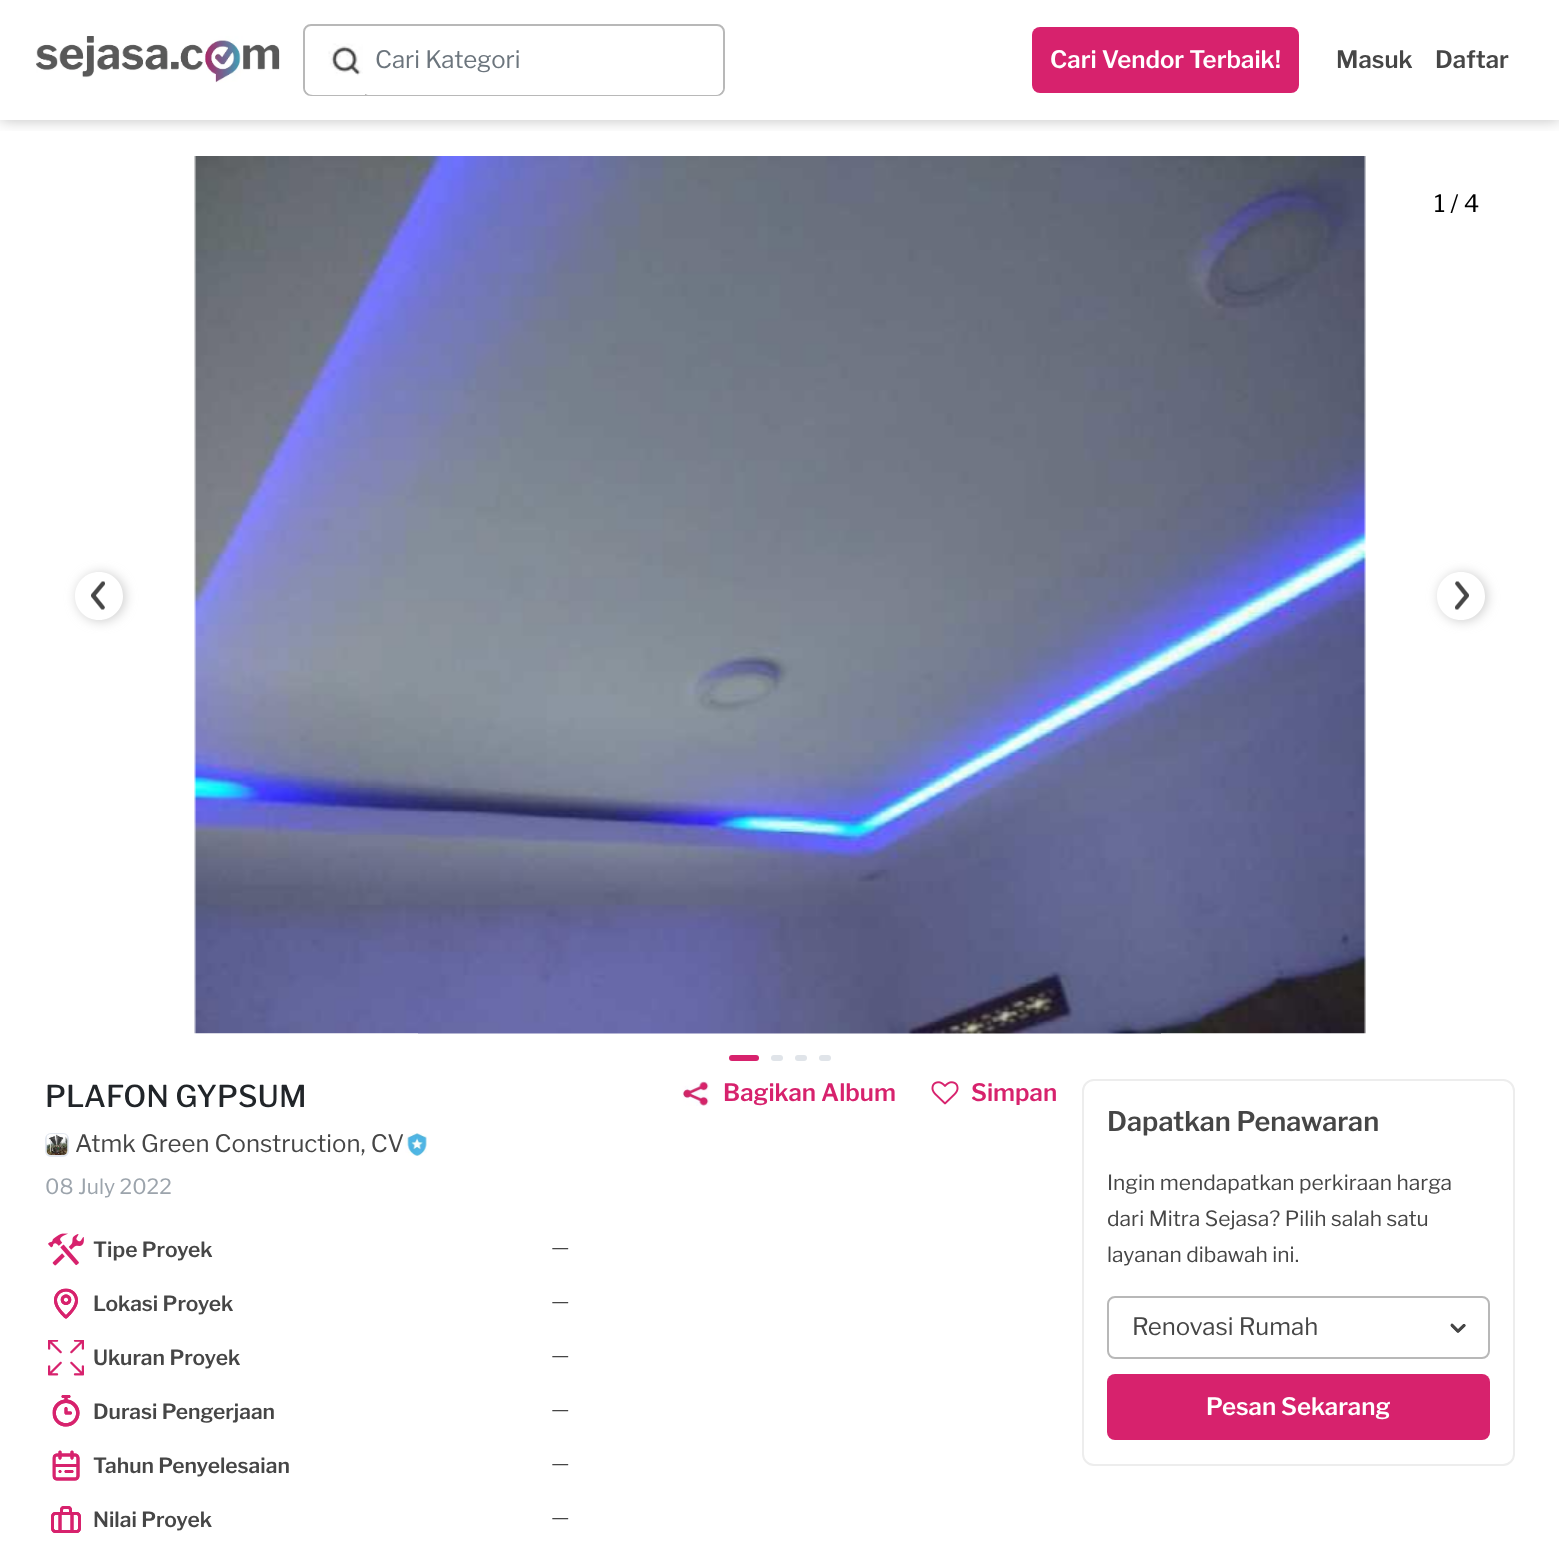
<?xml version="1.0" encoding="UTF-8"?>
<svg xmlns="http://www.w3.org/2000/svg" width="1559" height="1543">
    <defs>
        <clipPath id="clip1"><rect x="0" y="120" width="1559" height="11"/></clipPath>
        <filter id="blur1" x="-50%" y="-200%" width="200%" height="500%"><feGaussianBlur stdDeviation="7.5"/></filter>
        <clipPath id="clip2"><path d="M 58 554 H 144 V 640 H 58 Z M 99 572 C 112.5 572 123 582.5 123 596 C 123 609.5 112.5 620 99 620 C 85.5 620 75 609.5 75 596 C 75 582.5 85.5 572 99 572 Z" clip-rule="evenodd"/></clipPath>
        <filter id="blur2" x="-50%" y="-200%" width="200%" height="500%"><feGaussianBlur stdDeviation="6"/></filter>
        <clipPath id="clip3"><path d="M 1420 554 H 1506 V 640 H 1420 Z M 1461 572 C 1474.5 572 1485 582.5 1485 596 C 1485 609.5 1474.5 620 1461 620 C 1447.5 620 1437 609.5 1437 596 C 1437 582.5 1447.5 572 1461 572 Z" clip-rule="evenodd"/></clipPath>
    </defs>
    <rect width="100%" height="100%" fill="#FFFFFF"/>
    <g clip-path="url(#clip1)">
        <rect x="0" y="0" width="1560" height="120" fill="#000000" fill-opacity="0.25" filter="url(#blur1)"/>
    </g>
    <image x="36" y="36" width="244" height="47" href="img_01.png"/>
    <rect x="304" y="25" width="420" height="70" rx="7" fill="none" stroke="#B8B8B8" stroke-width="2"/>
    <path d="M 313 27 H 365 V 95 H 313 C 308.5 95 305 91.5 305 87 V 35 C 305 30.5 308.5 27 313 27 Z" fill="#FFFFFF"/>
    <image x="328" y="43" width="35" height="33" href="img_02.png"/>
    <path d="M 369 27 H 715 C 719.5 27 723 30.5 723 35 V 87 C 723 91.5 719.5 95 715 95 H 369 C 365.5 95 363 92.5 363 89 V 33 C 363 29.5 365.5 27 369 27 Z" fill="#FFFFFF"/>
    <rect x="363" y="27" width="360" height="68" rx="8" fill="#FFFFFF"/>
    <text x="375" y="68" font-family="Libre Franklin" font-size="24" fill="#6C757D">Cari Kategori</text>
    <rect x="1032" y="27" width="267" height="66" rx="8" fill="#D7226D"/>
    <text x="1050" y="68" font-family="Libre Franklin" font-size="24" font-weight="600" fill="#FFFFFF">Cari Vendor Terbaik!</text>
    <text x="1336" y="68" font-family="Libre Franklin" font-size="24" font-weight="600" fill="#464646">Masuk</text>
    <text x="1435" y="68" font-family="Libre Franklin" font-size="24" font-weight="600" fill="#464646">Daftar</text>
    <image x="194" y="156" width="1172" height="878" href="img_03.png"/>
    <text x="1434" y="212" font-family="Libre Franklin" font-size="24" fill="#000000">1 / 4</text>
    <g clip-path="url(#clip2)">
        <rect x="77" y="573" width="48" height="48" rx="24" fill="#CBCBCB" filter="url(#blur2)"/>
    </g>
    <image x="91" y="581" width="14" height="39" href="img_04.png"/>
    <g clip-path="url(#clip3)">
        <rect x="1439" y="573" width="48" height="48" rx="24" fill="#CBCBCB" filter="url(#blur2)"/>
    </g>
    <image x="1455" y="581" width="14" height="39" href="img_05.png"/>
    <rect x="729" y="1055" width="30" height="6" rx="3" fill="#D7226D"/>
    <rect x="771" y="1055" width="12" height="6" rx="3" fill="#E0E4E9"/>
    <rect x="795" y="1055" width="12" height="6" rx="3" fill="#E0E4E9"/>
    <rect x="819" y="1055" width="12" height="6" rx="3" fill="#E0E4E9"/>
    <text x="45" y="1107" font-family="Libre Franklin" font-size="30" font-weight="500" fill="#212529">PLAFON GYPSUM</text>
    <rect x="46" y="1134" width="22" height="22" rx="5" fill="none" stroke="#E2E7EF" stroke-width="2"/>
    <image x="46" y="1134" width="22" height="21" href="img_06.png"/>
    <text x="75" y="1152" font-family="Libre Franklin" font-size="24" fill="#464646">Atmk Green Construction, CV</text>
    <image x="405" y="1133" width="22" height="23" href="img_07.png"/>
    <text x="45" y="1194" font-family="Libre Franklin" font-size="21" fill="#9CA4AC">08 July 2022</text>
    <image x="682" y="1081" width="27" height="25" href="img_08.png"/>
    <text x="723" y="1101" font-family="Libre Franklin" font-size="24" font-weight="600" fill="#D7226D">Bagikan Album</text>
    <image x="931" y="1081" width="28" height="24" href="img_09.png"/>
    <text x="971" y="1101" font-family="Libre Franklin" font-size="24" font-weight="600" fill="#D7226D">Simpan</text>
    <image x="48" y="1233" width="36" height="33" href="img_10.png"/>
    <text x="93" y="1257" font-family="Libre Franklin" font-size="21" font-weight="600" fill="#464646">Tipe Proyek</text>
    <text x="551" y="1254" font-family="Libre Franklin" font-size="21" fill="#464646">—</text>
    <image x="54" y="1288" width="24" height="31" href="img_11.png"/>
    <text x="93" y="1311" font-family="Libre Franklin" font-size="21" font-weight="600" fill="#464646">Lokasi Proyek</text>
    <text x="551" y="1308" font-family="Libre Franklin" font-size="21" fill="#464646">—</text>
    <image x="48" y="1340" width="36" height="36" href="img_12.png"/>
    <text x="93" y="1365" font-family="Libre Franklin" font-size="21" font-weight="600" fill="#464646">Ukuran Proyek</text>
    <text x="551" y="1362" font-family="Libre Franklin" font-size="21" fill="#464646">—</text>
    <image x="52" y="1395" width="28" height="32" href="img_13.png"/>
    <text x="93" y="1419" font-family="Libre Franklin" font-size="21" font-weight="600" fill="#464646">Durasi Pengerjaan</text>
    <text x="551" y="1416" font-family="Libre Franklin" font-size="21" fill="#464646">—</text>
    <image x="52" y="1450" width="28" height="31" href="img_14.png"/>
    <text x="93" y="1473" font-family="Libre Franklin" font-size="21" font-weight="600" fill="#464646">Tahun Penyelesaian</text>
    <text x="551" y="1470" font-family="Libre Franklin" font-size="21" fill="#464646">—</text>
    <image x="51" y="1506" width="30" height="27" href="img_15.png"/>
    <text x="93" y="1527" font-family="Libre Franklin" font-size="21" font-weight="600" fill="#464646">Nilai Proyek</text>
    <text x="551" y="1524" font-family="Libre Franklin" font-size="21" fill="#464646">—</text>
    <rect x="1083" y="1080" width="431" height="385" rx="11" fill="none" stroke="#EDEDED" stroke-width="2"/>
    <text x="1107" y="1131" font-family="Libre Franklin" font-size="27" font-weight="600" fill="#464646">Dapatkan Penawaran</text>
    <text font-family="Libre Franklin" font-size="21" fill="#464646">
        <tspan x="1107" y="1190">Ingin mendapatkan perkiraan harga</tspan>
        <tspan x="1107" y="1226">dari Mitra Sejasa? Pilih salah satu</tspan>
        <tspan x="1107" y="1262">layanan dibawah ini.</tspan>
    </text>
    <rect x="1108" y="1297" width="381" height="61" rx="7" fill="none" stroke="#B8B8B8" stroke-width="2"/>
    <text x="1132" y="1335" font-family="Libre Franklin" font-size="24" fill="#464646">Renovasi Rumah</text>
    <image x="1450" y="1323" width="16" height="10" href="img_16.png"/>
    <rect x="1107" y="1374" width="383" height="66" rx="8" fill="#D7226D"/>
    <text x="1206" y="1415" font-family="Libre Franklin" font-size="24" font-weight="600" fill="#FFFFFF">Pesan Sekarang</text>
</svg>
